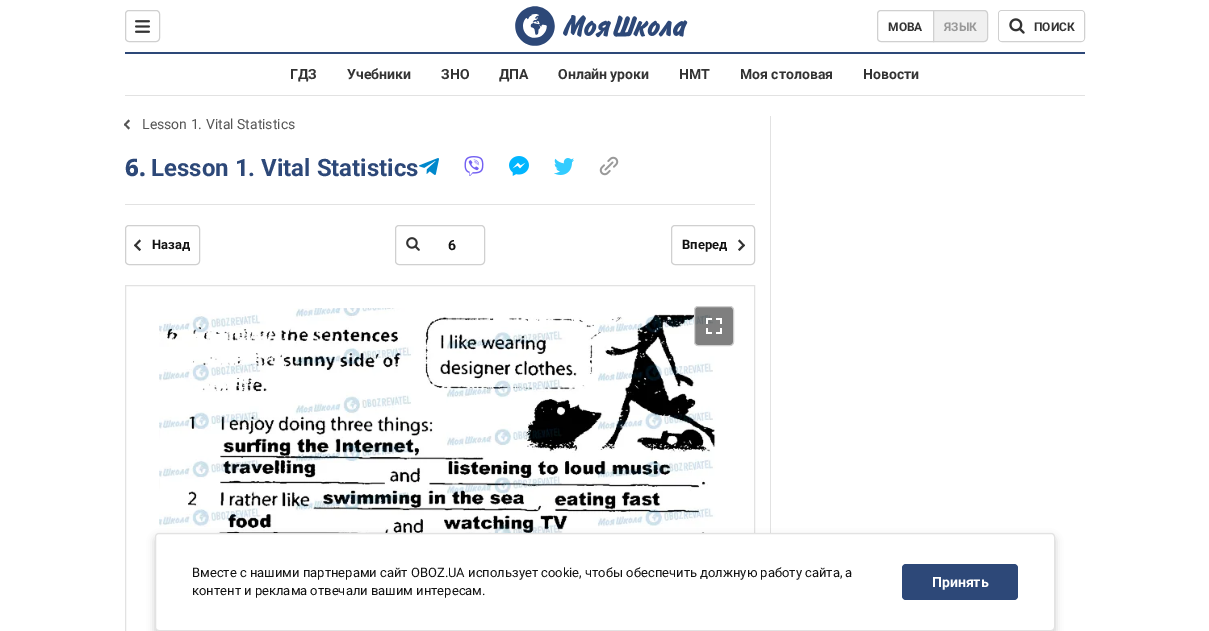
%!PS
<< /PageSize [1209 631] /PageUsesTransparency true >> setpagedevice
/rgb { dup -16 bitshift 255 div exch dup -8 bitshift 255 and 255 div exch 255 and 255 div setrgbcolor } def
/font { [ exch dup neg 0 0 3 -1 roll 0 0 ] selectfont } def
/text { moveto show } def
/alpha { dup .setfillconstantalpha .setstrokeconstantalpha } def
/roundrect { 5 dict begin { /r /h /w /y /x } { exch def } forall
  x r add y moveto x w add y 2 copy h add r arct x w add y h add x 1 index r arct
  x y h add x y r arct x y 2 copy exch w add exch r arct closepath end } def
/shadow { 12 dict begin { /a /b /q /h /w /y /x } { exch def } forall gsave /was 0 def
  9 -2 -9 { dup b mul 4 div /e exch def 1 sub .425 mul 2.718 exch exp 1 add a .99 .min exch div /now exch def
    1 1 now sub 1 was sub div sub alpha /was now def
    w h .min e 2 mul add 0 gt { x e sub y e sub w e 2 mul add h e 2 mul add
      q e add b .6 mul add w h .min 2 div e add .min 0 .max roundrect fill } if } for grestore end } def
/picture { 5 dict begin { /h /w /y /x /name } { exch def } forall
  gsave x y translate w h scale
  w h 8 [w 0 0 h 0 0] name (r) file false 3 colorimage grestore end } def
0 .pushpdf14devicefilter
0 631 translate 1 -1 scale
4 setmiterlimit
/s1 { /Roboto-Bold 12 font 16#333333 rgb } def
/s2 { /Roboto-Bold 12 font 16#999999 rgb } def
/s3 { /Roboto-Bold 14 font 16#333333 rgb } def
/s4 { /Roboto-Regular 14 font 16#555555 rgb } def
/s5 { /NotoSans-ExtraBold 24 font 16#2D4878 rgb } def
/s6 { /Roboto-Bold 24 font 16#2D4878 rgb } def
/s7 { /Roboto-Bold 13 font 16#121212 rgb } def
/s8 { /Roboto-Bold 14 font 16#121212 rgb } def
/s9 { /Roboto-Regular 13 font 16#121212 rgb } def
/s10 { /Roboto-Bold 14 font 16#FFFFFF rgb } def
16#FFFFFF rgb
0 0 1209 631 rectfill
16#2D4878 rgb
125 52 960 2 rectfill
16#D0D0D0 rgb
125.5 10.5 34 31 3.5 roundrect stroke
(pic1.raw) 135 20 15 13 picture
(pic2.raw) 515 6 173 40 picture
881 10.5 moveto 933.5 10.5 lineto 933.5 41.5 lineto 881 41.5 lineto 879 41.5 877.5 40 877.5 38 curveto 877.5 14 lineto 877.5 12 879 10.5 881 10.5 curveto closepath stroke
s1
(МОВА) 888 31 text
16#F0F0F0 rgb
933.5 10.5 moveto 984 10.5 lineto 986 10.5 987.5 12 987.5 14 curveto 987.5 38 lineto 987.5 40 986 41.5 984 41.5 curveto 933.5 41.5 lineto closepath gsave fill grestore
16#D0D0D0 rgb
stroke
s2
(ЯЗЫК) 944 31 text
16#D0D0D0 rgb
998.5 10.5 86 31 3.5 roundrect stroke
16#FFFFFF rgb
999 11 85 30 3 roundrect fill
(pic3.raw) 1009 18 16 16 picture
s1
(ПОИСК) 1034 31 text
16#E2E2E2 rgb
125 95 960 1 rectfill
s3
(ГДЗ) 290 79 text
(Учебники) 347 79 text
(ЗНО) 441 79 text
(ДПА) 499 79 text
(Онлайн уроки) 558 79 text
(НМТ) 679 79 text
(Моя столовая) 740 79 text
(Новости) 863 79 text
16#555555 rgb
130 128 moveto 128.5 129.5 lineto 124 124.5 lineto 125 123.5 lineto closepath fill
130 121 moveto 125 126 lineto 124 124.5 lineto 128.5 119.5 lineto closepath fill
s4
(Lesson 1. Vital Statistics) 142 129 text
16#E2E2E2 rgb
125 204 630 1 rectfill
s5
(6.) 125 176 text
s6
(Lesson 1. Vital Statistics) 151 176 text
(pic4.raw) 419 158 20 17 picture
(pic5.raw) 464 156 20 20 picture
(pic6.raw) 509 156 20 20 picture
(pic7.raw) 554 158 20 17 picture
(pic8.raw) 599 156 20 20 picture
16#D0D0D0 rgb
125.5 225.5 74 39 3.5 roundrect stroke
16#333333 rgb
141 249.5 moveto 139.5 251 lineto 134 245.5 lineto 135.5 244 lineto closepath fill
141 241 moveto 135.5 246.5 lineto 134 245.5 lineto 139.5 239.5 lineto closepath fill
s7
(Назад) 152 249 text
16#D0D0D0 rgb
395.5 225.5 89 39 3.5 roundrect stroke
(pic9.raw) 406 237 14 14 picture
s8
(6) 448 250 text
16#D0D0D0 rgb
671.5 225.5 83 39 3.5 roundrect stroke
s7
(Вперед) 682 249 text
16#333333 rgb
738 241 moveto 739.5 239.5 lineto 745 245.5 lineto 743.5 246.5 lineto closepath fill
738 249.5 moveto 743.5 244 lineto 745 245.5 lineto 739.5 251 lineto closepath fill
16#E2E2E2 rgb
125.5 285.5 629 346 rectstroke
(pic11.raw) 159 308 557 225 picture
0.5 alpha
16#000000 rgb
694.5 306.5 39 39 3.5 roundrect fill
1 alpha
16#D0D0D0 rgb
694.5 306.5 39 39 3.5 roundrect stroke
(pic10.raw) 706 318 16 16 picture
16#E2E2E2 rgb
770 116 1 417 rectfill
16#000000 rgb
155 537 900 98 4 4 0.2 shadow
16#FFFFFF rgb
155.5 533.5 899 97 3.5 roundrect gsave fill grestore
16#E2E2E2 rgb
stroke
s9
(Вместе с нашими партнерами сайт OBOZ.UA использует cookie, чтобы обеспечить должную работу сайта, а) 192 577 text
(контент и реклама отвечали вашим интересам.) 192 595 text
16#2D4878 rgb
902 564 116 36 4 roundrect fill
s10
(Принять) 932 587 text
.poppdf14devicefilter showpage
